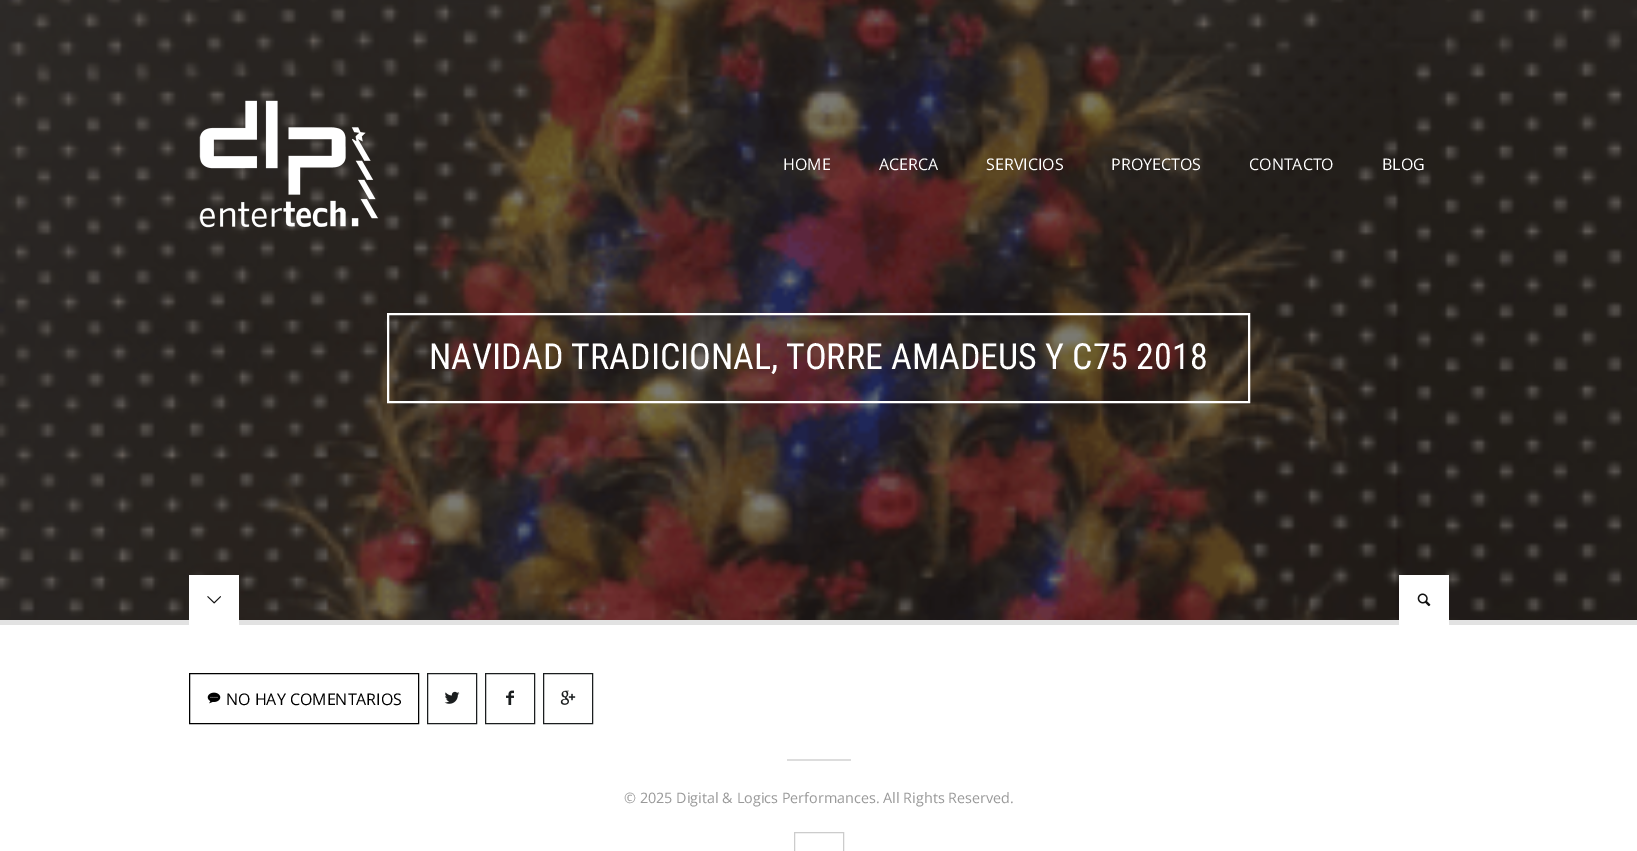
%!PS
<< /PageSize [1637 851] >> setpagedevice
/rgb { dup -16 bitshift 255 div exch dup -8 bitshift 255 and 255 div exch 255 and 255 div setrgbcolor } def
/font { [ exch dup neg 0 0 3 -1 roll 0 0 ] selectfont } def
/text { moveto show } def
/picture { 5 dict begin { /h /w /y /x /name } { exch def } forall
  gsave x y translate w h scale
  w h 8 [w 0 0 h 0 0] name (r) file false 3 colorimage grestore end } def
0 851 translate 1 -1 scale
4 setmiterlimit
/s1 { /OpenSans-Regular 16 font 16#FFFFFF rgb } def
/s2 { /RobotoCondensed-Regular 36 font 16#FFFFFF rgb } def
/s3 { /OpenSans-Regular 16 font 16#000000 rgb } def
/s4 { /OpenSans-Regular 14.4 font 16#999999 rgb } def
16#FFFFFF rgb
0 0 1637 851 rectfill
(pic2.raw) 0 0 1637 620 picture
(pic1.raw) 199 100 180 128 picture
s1
(HOME) 783 170 text
(ACERCA) 879 170 text
(SERVICIOS) 986 170 text
(PROYECTOS) 1111 170 text
(CONTACTO) 1249 170 text
(BLOG) 1382 170 text
2 setlinewidth
388 314 861 88 rectstroke
s2
(NAVIDAD TRADICIONAL, TORRE AMADEUS Y C75 2018) 429 369 text
16#E2E2E2 rgb
0 620 1637 5 rectfill
16#FFFFFF rgb
189 575 50 50 rectfill
(pic3.raw) 207 596 14 8 picture
1399 575 50 50 rectfill
(pic4.raw) 1417 593 14 14 picture
16#000000 rgb
1 setlinewidth
189.5 673.5 229 50 rectstroke
(pic5.raw) 207 692 14 12 picture
s3
(NO HAY COMENTARIOS) 226 705 text
16#1B1E1F rgb
427.5 673.5 49 50 rectstroke
(pic6.raw) 444 691 16 13 picture
485.5 673.5 49 50 rectstroke
(pic7.raw) 506 690 8 15 picture
543.5 673.5 49 50 rectstroke
(pic8.raw) 560 690 16 15 picture
16#DDDDDD rgb
787 759 64 2 rectfill
s4
(© 2025 Digital & Logics Performances. All Rights Reserved.) 624 803 text
16#CCCCCC rgb
794.5 832.5 49 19 rectstroke
showpage
